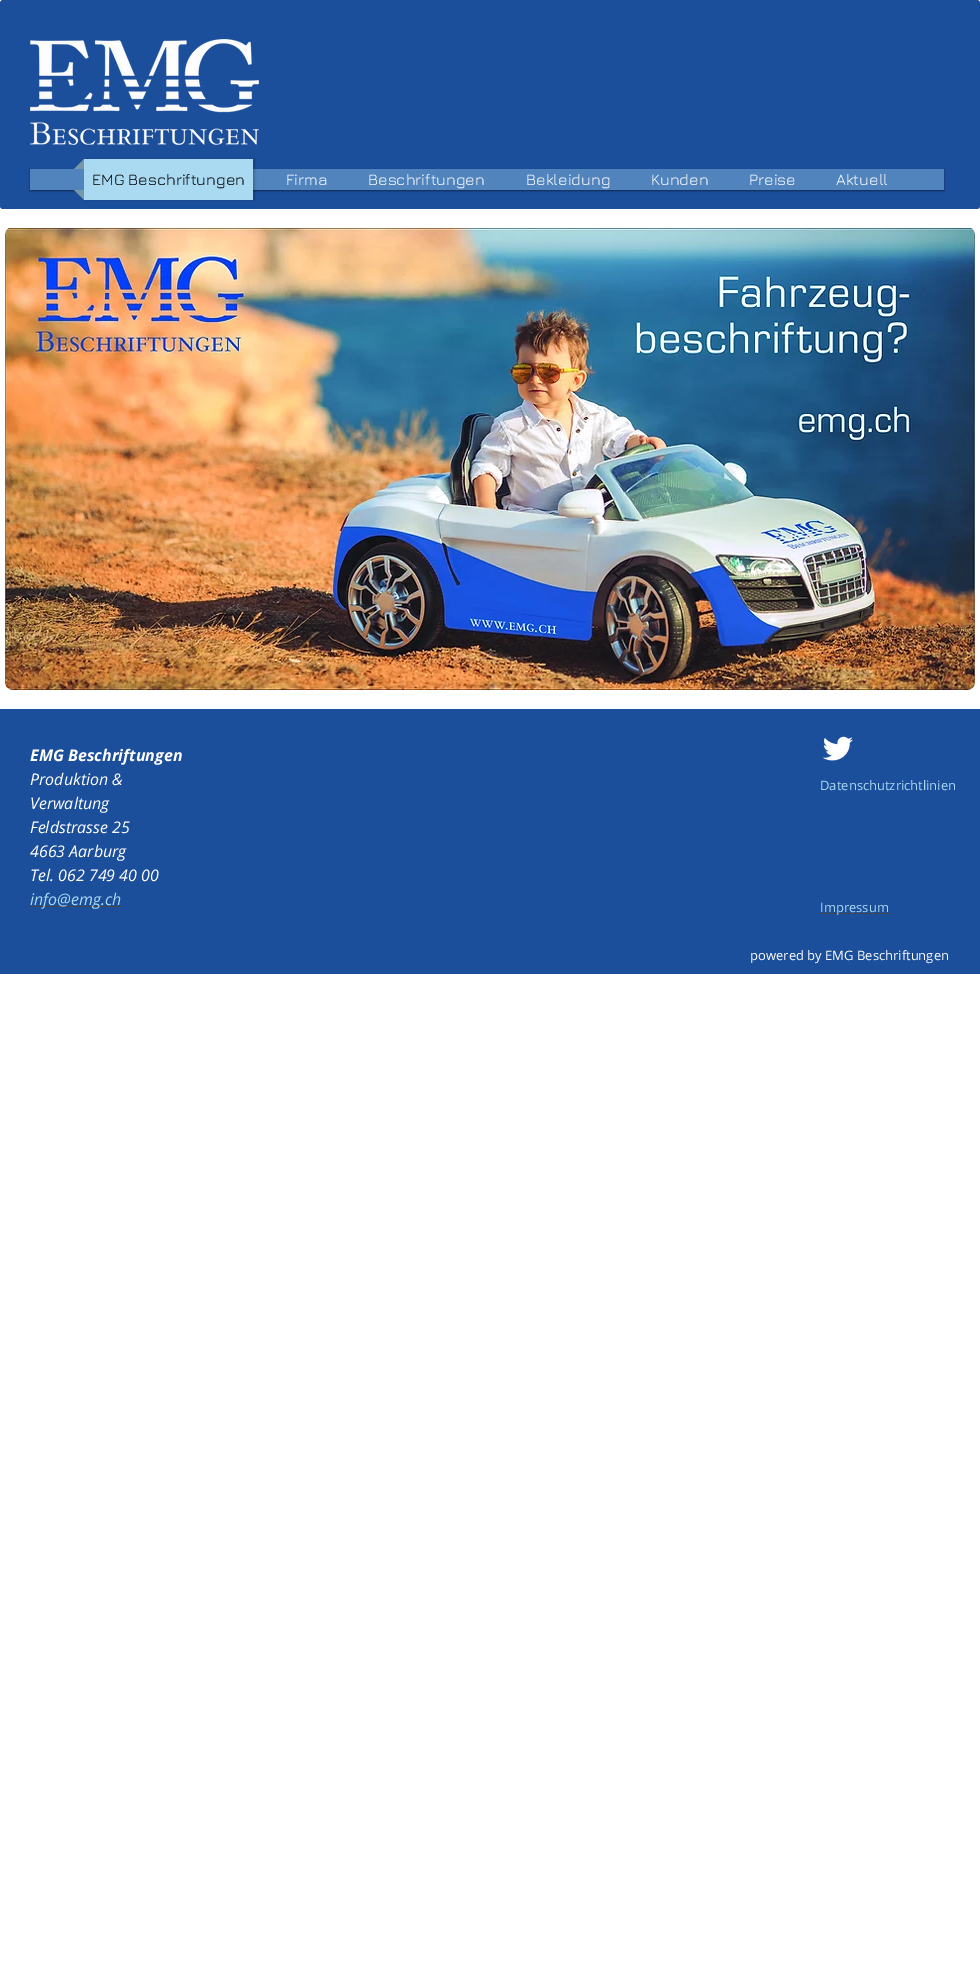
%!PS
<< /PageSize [980 1988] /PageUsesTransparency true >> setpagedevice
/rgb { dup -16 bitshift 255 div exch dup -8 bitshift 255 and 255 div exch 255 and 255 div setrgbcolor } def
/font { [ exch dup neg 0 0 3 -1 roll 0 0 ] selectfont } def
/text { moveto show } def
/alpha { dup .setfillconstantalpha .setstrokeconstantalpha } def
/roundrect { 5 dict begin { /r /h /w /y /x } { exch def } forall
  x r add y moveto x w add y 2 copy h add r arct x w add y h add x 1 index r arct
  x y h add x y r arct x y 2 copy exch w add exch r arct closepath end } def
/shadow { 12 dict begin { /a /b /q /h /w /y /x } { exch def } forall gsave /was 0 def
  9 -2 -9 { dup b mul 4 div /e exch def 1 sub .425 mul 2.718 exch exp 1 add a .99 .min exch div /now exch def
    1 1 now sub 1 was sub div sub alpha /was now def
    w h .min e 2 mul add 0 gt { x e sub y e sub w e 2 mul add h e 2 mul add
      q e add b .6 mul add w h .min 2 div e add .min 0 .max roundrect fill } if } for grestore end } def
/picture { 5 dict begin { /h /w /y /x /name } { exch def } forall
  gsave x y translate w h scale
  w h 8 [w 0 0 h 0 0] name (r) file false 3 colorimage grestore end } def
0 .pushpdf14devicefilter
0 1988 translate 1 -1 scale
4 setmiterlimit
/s1 { /Jura-Regular 16 font 16#000000 rgb } def
/s2 { /Jura-Regular 16 font 16#FFFFFF rgb } def
/s3 { /OpenSans-BoldItalic 16 font 16#FFFFFF rgb } def
/s4 { /OpenSans-Italic 16 font 16#FFFFFF rgb } def
/s5 { /OpenSans-Italic 16 font 16#AAD9F2 rgb } def
/s6 { /OpenSans-Regular 13 font 16#AAD9F2 rgb } def
/s7 { /OpenSans-Regular 13 font 16#FFFFFF rgb } def
16#FFFFFF rgb
0 0 980 1988 rectfill
16#1B4E9B rgb
0 0 980 209 3 roundrect fill
(pic1.raw) 30 39 229 106 picture
16#000000 rgb
30 170 914 21 0 1 0.5 shadow
16#5183BC rgb
30 169 914 21 rectfill
16#000000 rgb
86 159 169 41 0 1 0.2 shadow
16#7798A9 rgb
84 169 moveto 74 169 lineto 84 159 lineto closepath 74 190 moveto 84 190 lineto 84 200 lineto closepath fill
16#AAD9F2 rgb
84 159 169 41 rectfill
s1
(EMG Beschriftungen) 92 185 text
s2
(Firma) 286 185 text
(Beschriftungen) 368 185 text
(Bekleidung) 526 185 text
(Kunden) 651 185 text
(Preise) 749 185 text
(Aktuell) 836 185 text
(pic2.raw) 5 228 970 462 picture
16#1B4E9B rgb
0 709 980 265 rectfill
s3
(EMG Beschriftungen) 30 761 text
s4
(Produktion &) 30 785 text
(Verwaltung) 30 809 text
(Feldstrasse 25) 30 833 text
(4663 Aarburg) 30 857 text
(Tel. 062 749 40 00) 30 881 text
16#474646 rgb
30 906 91 1 rectfill
s5
(info@emg.ch) 30 905 text
(pic3.raw) 823 736 30 25 picture
s6
(Datenschutzrichtlinien) 820 790 text
16#474646 rgb
820 913 69 1 rectfill
s6
(Impressum) 820 912 text
s7
(powered by EMG Beschriftungen) 750 960 text
.poppdf14devicefilter showpage
